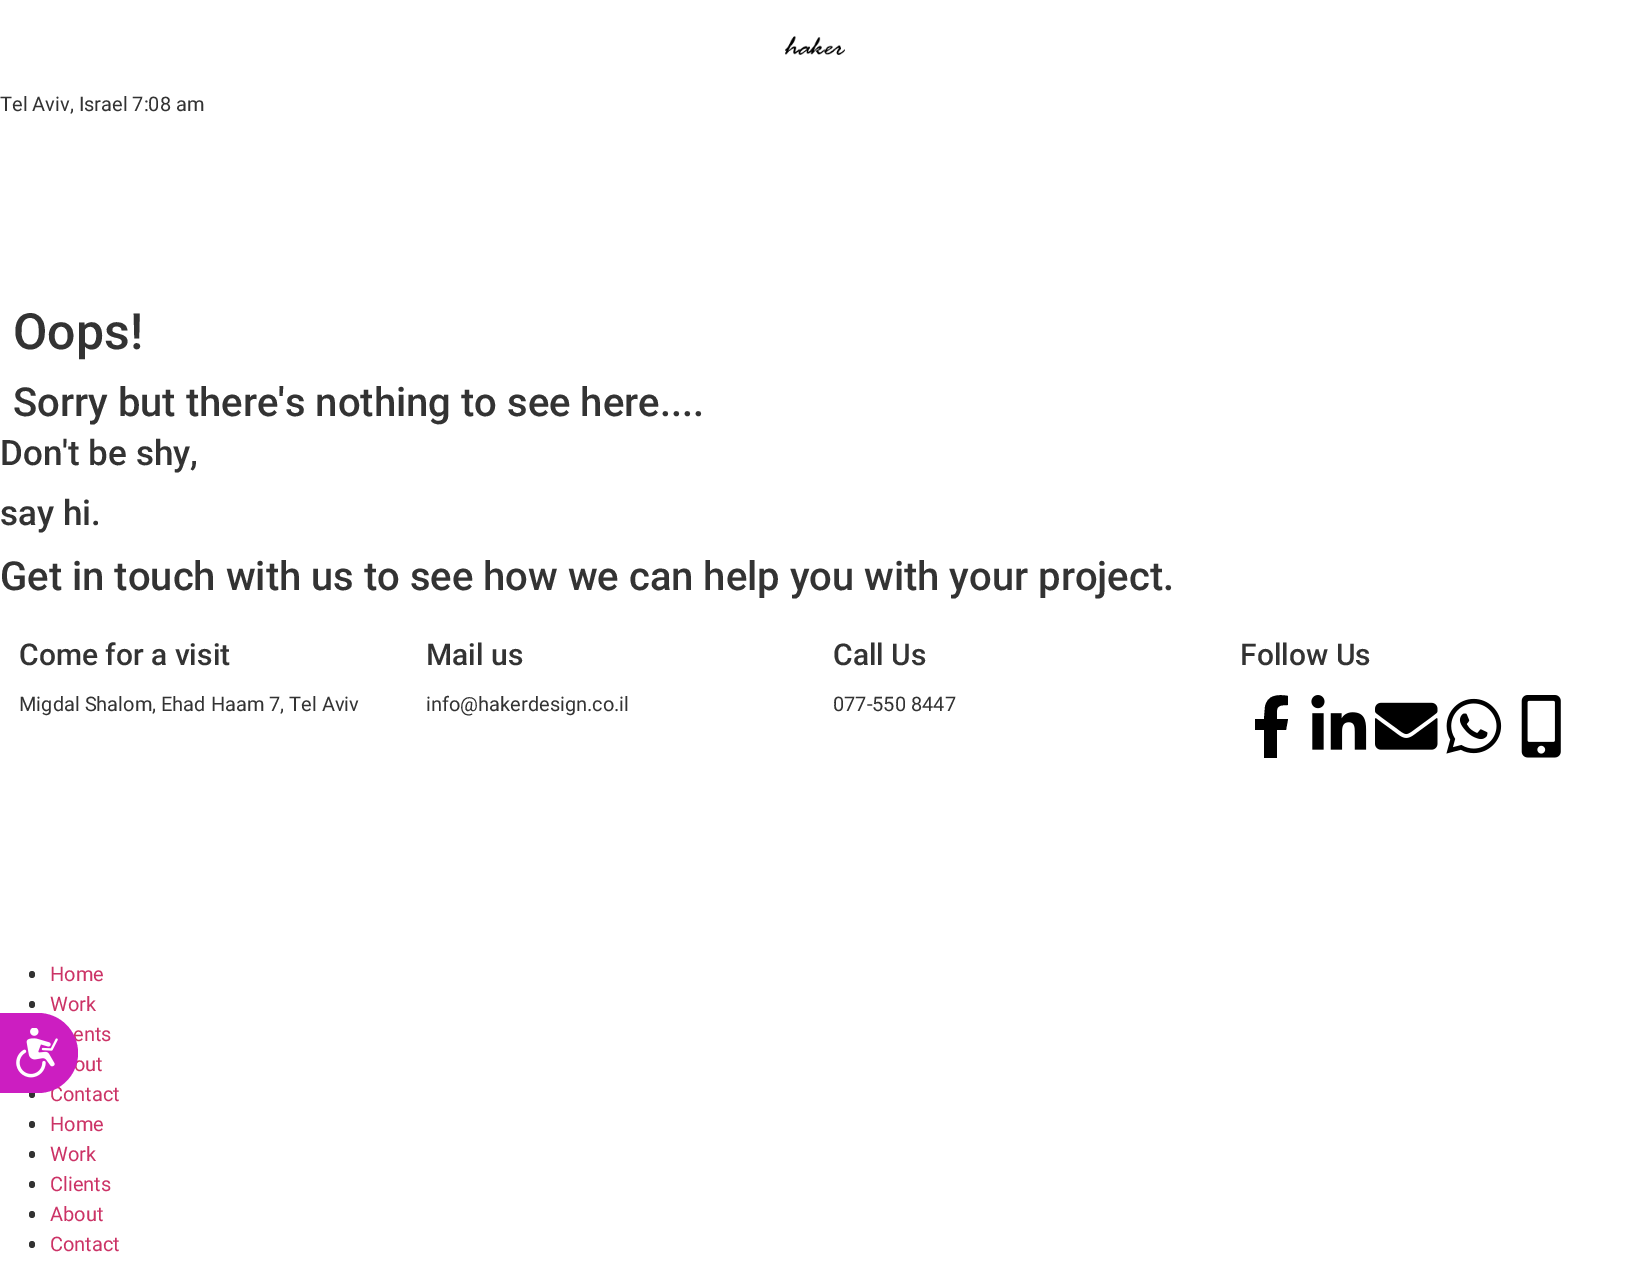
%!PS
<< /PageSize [1628 1264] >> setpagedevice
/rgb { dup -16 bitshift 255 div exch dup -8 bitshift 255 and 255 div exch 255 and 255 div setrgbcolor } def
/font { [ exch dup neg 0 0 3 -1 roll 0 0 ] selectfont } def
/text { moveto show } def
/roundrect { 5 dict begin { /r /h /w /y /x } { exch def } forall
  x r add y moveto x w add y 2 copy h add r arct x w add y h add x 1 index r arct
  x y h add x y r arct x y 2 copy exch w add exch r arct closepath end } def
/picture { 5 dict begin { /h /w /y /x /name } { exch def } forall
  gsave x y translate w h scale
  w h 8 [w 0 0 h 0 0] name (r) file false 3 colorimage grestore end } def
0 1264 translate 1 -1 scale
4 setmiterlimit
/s1 { /Roboto-Regular 20 font 16#333333 rgb } def
/s2 { /Roboto-Medium 50 font 16#333333 rgb } def
/s3 { /Roboto-Medium 40 font 16#333333 rgb } def
/s4 { /Roboto-Medium 35 font 16#333333 rgb } def
/s5 { /Roboto-Medium 30 font 16#333333 rgb } def
/s6 { /Roboto-Regular 20 font 16#CC3366 rgb } def
16#FFFFFF rgb
0 0 1628 1264 rectfill
(pic1.raw) 785 36 60 19 picture
s1
(Tel Aviv, Israel 7:08 am) 0 111 text
s2
(Oops!) 13 349 text
s3
(Sorry but there's nothing to see here....) 13 416 text
s4
(Don't be shy,) 0 465 text
(say hi.) 0 525 text
s3
(Get in touch with us to see how we can help you with your project.) 0 590 text
s5
(Come for a visit) 19 665 text
s1
(Migdal Shalom, Ehad Haam 7, Tel Aviv) 19 711 text
s5
(Mail us) 426 665 text
s1
(info@hakerdesign.co.il) 426 711 text
s5
(Call Us) 833 665 text
s1
(077-550 8447) 833 711 text
s5
(Follow Us) 1240 665 text
16#000000 rgb
1286 730 moveto 1288 719 lineto 1277 719 lineto 1277 708 1275 705 1288 705 curveto 1288 696 lineto 1278 694 1267 695 1265 707 curveto 1264 719 lineto 1255 719 lineto 1255 730 lineto 1264 730 lineto 1264 758 lineto 1277 758 lineto 1277 730 lineto closepath fill
(pic2.raw) 1311 695 56 55 picture
(pic3.raw) 1375 702 63 48 picture
(pic4.raw) 1446 698 56 56 picture
(pic5.raw) 1521 695 40 63 picture
s6
(ents) 73 1041 text
(out) 74 1071 text
16#333333 rgb
29 1091 6 7 3 roundrect fill
s6
(Contact) 50 1101 text
16#CC1EC1 rgb
0 1013 moveto 38 1013 lineto 60 1013 78 1031 78 1053 curveto 78 1075 60 1093 38 1093 curveto 0 1093 lineto closepath fill
(pic6.raw) 16 1028 42 50 picture
16#333333 rgb
29 971 6 7 3 roundrect fill
s6
(Home) 50 981 text
16#333333 rgb
29 1001 6 7 3 roundrect fill
s6
(Work) 50 1011 text
16#333333 rgb
29 1121 6 7 3 roundrect fill
s6
(Home) 50 1131 text
16#333333 rgb
29 1151 6 7 3 roundrect fill
s6
(Work) 50 1161 text
16#333333 rgb
29 1181 6 7 3 roundrect fill
s6
(Clients) 50 1191 text
16#333333 rgb
29 1211 6 7 3 roundrect fill
s6
(About) 50 1221 text
16#333333 rgb
29 1241 6 7 3 roundrect fill
s6
(Contact) 50 1251 text
showpage
